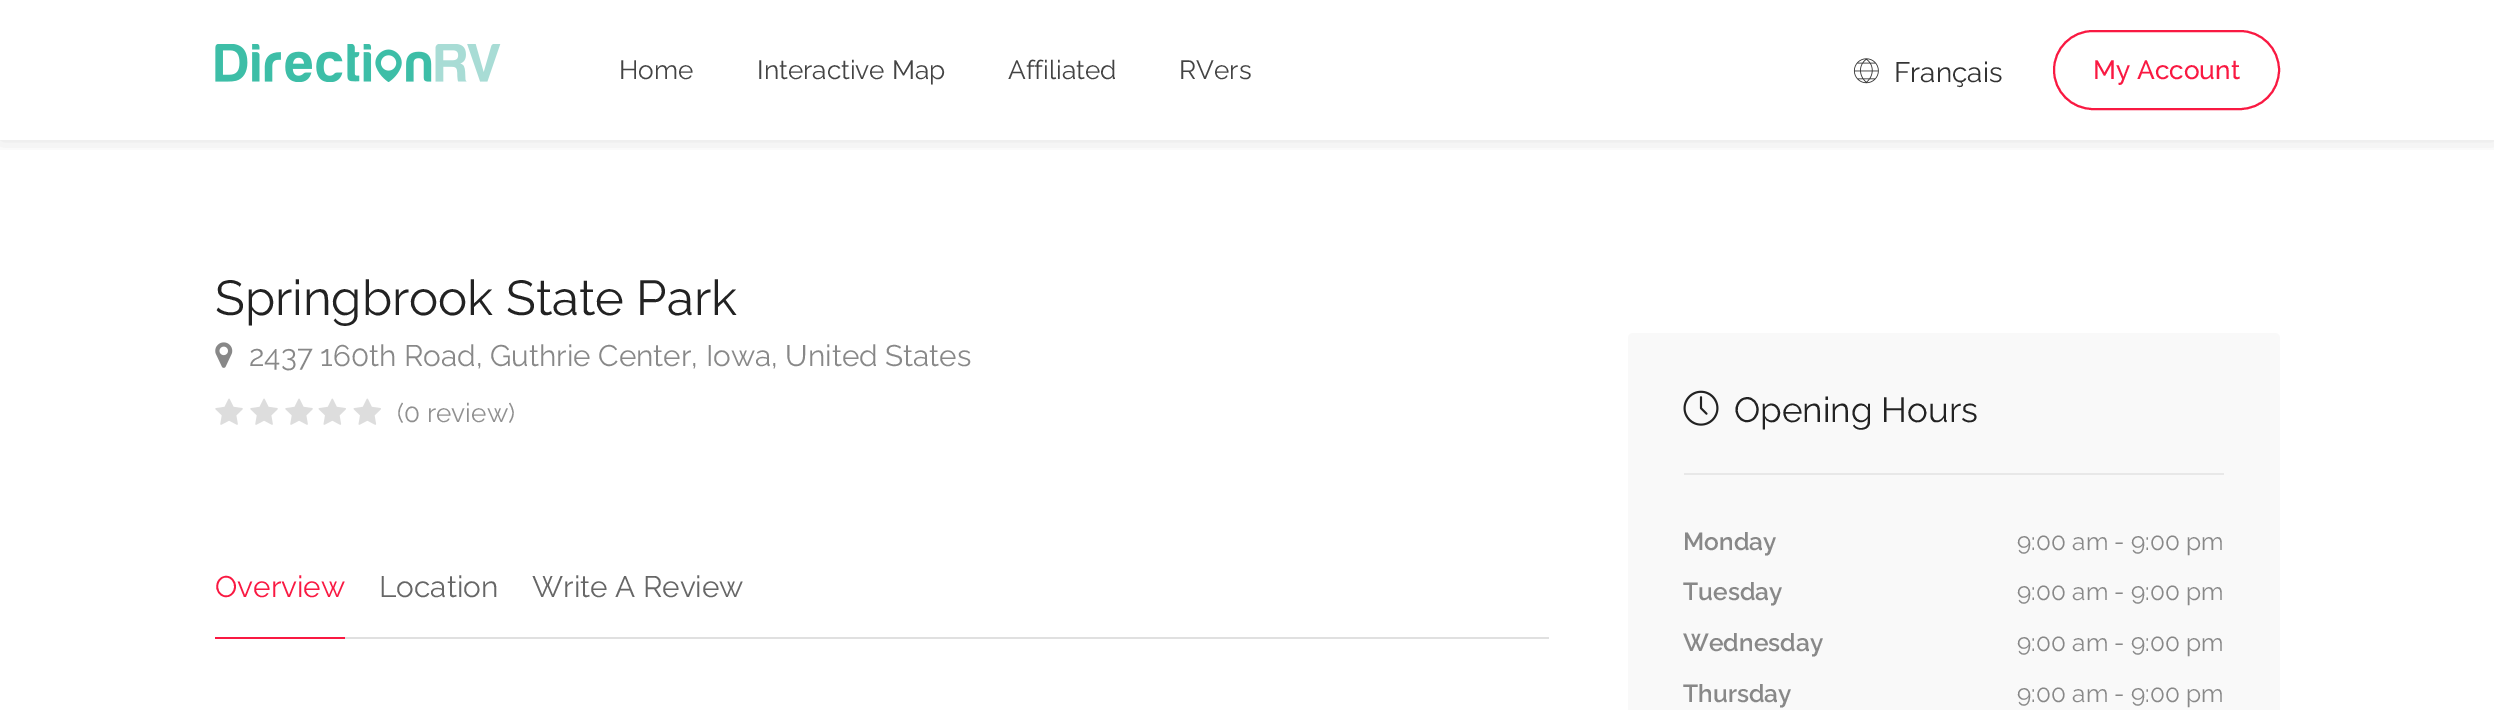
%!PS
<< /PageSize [2494 710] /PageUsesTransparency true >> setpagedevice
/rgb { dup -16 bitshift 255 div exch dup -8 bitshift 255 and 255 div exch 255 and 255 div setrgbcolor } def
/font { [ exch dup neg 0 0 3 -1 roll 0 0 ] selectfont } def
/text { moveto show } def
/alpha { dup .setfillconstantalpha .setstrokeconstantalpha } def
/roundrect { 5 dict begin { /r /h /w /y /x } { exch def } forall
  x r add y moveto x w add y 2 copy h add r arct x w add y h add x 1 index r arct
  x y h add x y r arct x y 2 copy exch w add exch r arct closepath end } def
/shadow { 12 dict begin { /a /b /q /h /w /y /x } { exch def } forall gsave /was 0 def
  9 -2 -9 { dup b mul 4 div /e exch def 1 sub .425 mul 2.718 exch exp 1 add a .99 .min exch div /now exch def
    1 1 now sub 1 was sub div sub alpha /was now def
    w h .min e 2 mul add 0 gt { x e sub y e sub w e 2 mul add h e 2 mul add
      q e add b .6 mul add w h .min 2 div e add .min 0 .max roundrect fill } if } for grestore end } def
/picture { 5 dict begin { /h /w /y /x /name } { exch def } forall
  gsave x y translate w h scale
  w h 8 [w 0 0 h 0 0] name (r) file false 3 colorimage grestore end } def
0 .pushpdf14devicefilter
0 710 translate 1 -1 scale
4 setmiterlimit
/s1 { /Raleway-Regular 26.25 font 16#444444 rgb } def
/s2 { /Raleway-Regular 28 font 16#333333 rgb } def
/s3 { /Raleway-Medium 26.25 font 16#F91942 rgb } def
/s4 { /Raleway-Regular 49 font 16#222222 rgb } def
/s5 { /Raleway-Regular 29.75 font 16#888888 rgb } def
/s6 { /Raleway-Regular 26.25 font 16#909090 rgb } def
/s7 { /Raleway-Regular 29.75 font 16#F91942 rgb } def
/s8 { /Raleway-Regular 29.75 font 16#666666 rgb } def
/s9 { /Raleway-Regular 35 font 16#222222 rgb } def
/s10 { /Raleway-SemiBold 24.5 font 16#888888 rgb } def
/s11 { /Raleway-Regular 24.5 font 16#888888 rgb } def
16#FFFFFF rgb
0 0 2494 710 rectfill
gsave
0 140 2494 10 rectclip
16#000000 rgb
0 0 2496 140 0 10.5 0.12 shadow
grestore
(pic1.raw) 215 44 286 38 picture
s1
(Home) 619 79 text
(Interactive Map) 757 79 text
(Affiliated) 1008 79 text
(RVers) 1179 79 text
(pic2.raw) 1853 58 26 26 picture
s2
(Français) 1894 82 text
16#F91942 rgb
2 setlinewidth
2054 31 225 78 39 roundrect stroke
s3
(My Account) 2093 79 text
s4
(Springbrook State Park) 215 315 text
(pic3.raw) 215 342 18 26 picture
s5
(2437 160th Road, Guthrie Center, Iowa, United States) 249 366 text
(pic4.raw) 215 398 28 27 picture
(pic4.raw) 250 398 28 27 picture
(pic4.raw) 285 398 28 27 picture
(pic5.raw) 318 398 28 27 picture
(pic5.raw) 353 398 28 27 picture
s6
(\(0 review\)) 397 422 text
16#E0E0E0 rgb
345 637 1204 2 rectfill
16#F91942 rgb
215 637 130 2 rectfill
s7
(Overview) 215 597 text
s8
(Location) 379 597 text
(Write A Review) 532 597 text
16#F9F9F9 rgb
1628 333 652 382 5 roundrect fill
16#E8E8E8 rgb
1684 473 540 2 rectfill
(pic6.raw) 1683 390 36 36 picture
s9
(Opening Hours) 1734 422 text
s10
(Monday) 1683 550 text
s11
(9:00 am - 9:00 pm) 2017 550 text
s10
(Tuesday) 1683 600 text
s11
(9:00 am - 9:00 pm) 2017 600 text
s10
(Wednesday) 1683 651 text
s11
(9:00 am - 9:00 pm) 2017 651 text
s10
(Thursday) 1683 702 text
s11
(9:00 am - 9:00 pm) 2017 702 text
.poppdf14devicefilter showpage
